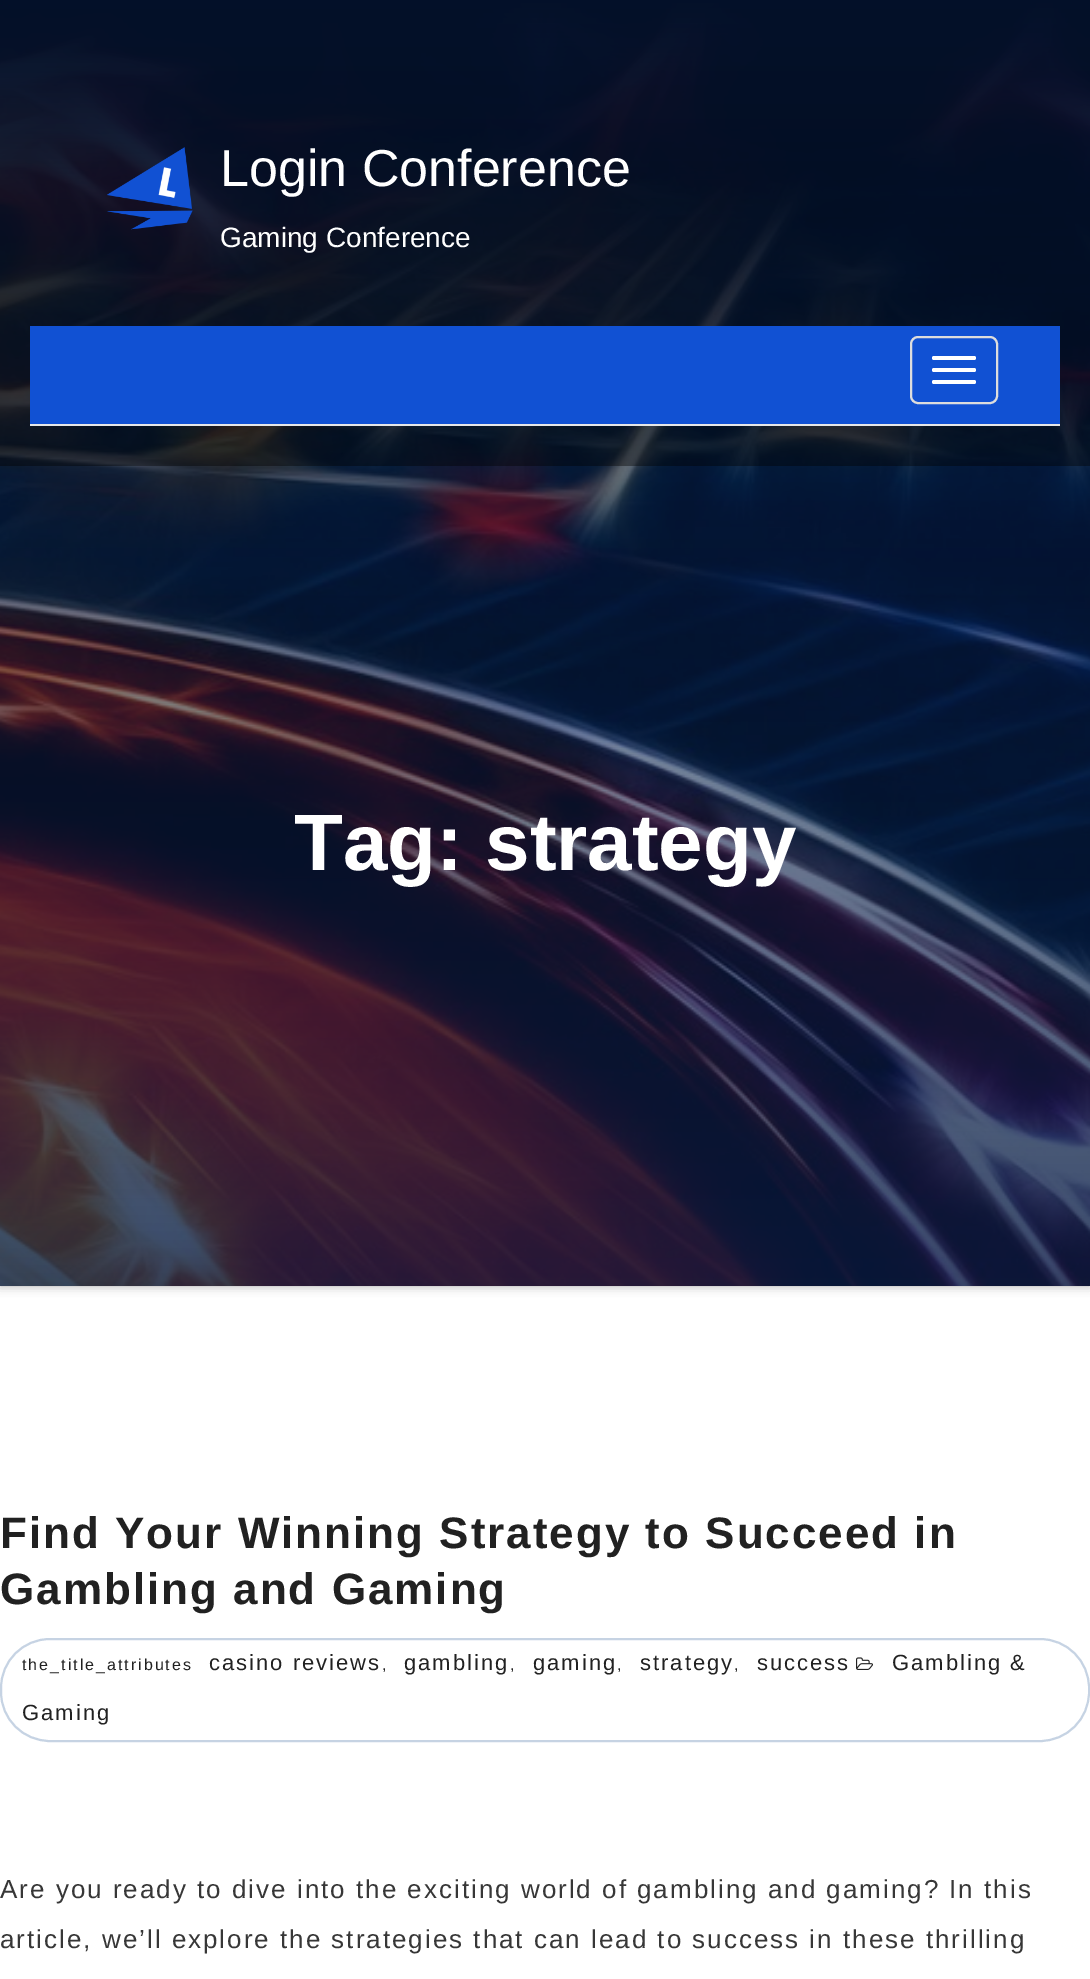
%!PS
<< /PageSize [1090 1979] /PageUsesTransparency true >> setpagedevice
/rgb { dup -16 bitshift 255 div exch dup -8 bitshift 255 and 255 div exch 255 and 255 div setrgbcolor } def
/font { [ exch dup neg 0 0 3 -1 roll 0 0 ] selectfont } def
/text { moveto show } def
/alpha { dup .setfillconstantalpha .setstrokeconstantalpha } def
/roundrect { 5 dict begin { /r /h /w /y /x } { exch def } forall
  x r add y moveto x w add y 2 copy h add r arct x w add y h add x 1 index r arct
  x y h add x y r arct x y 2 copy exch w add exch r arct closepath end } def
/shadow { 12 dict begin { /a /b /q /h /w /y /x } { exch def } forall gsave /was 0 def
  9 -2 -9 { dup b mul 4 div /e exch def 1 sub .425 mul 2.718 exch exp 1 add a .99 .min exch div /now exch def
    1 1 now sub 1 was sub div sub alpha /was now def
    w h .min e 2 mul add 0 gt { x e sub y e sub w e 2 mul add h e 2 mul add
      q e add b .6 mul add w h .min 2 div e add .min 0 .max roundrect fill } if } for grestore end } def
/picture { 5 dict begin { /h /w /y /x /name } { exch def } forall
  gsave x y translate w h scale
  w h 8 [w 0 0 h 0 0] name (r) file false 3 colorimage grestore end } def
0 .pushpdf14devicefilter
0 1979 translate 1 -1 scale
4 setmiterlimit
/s1 { /LiberationSans-Regular 52 font 16#FFFFFF rgb } def
/s2 { /LiberationSans-Regular 28 font 16#FFFFFF rgb } def
/s3 { /LiberationSans-Bold 80 font 16#FFFFFF rgb } def
16#FFFFFF rgb
0 0 1090 1979 rectfill
16#AAAAAA rgb
0 0 1090 1286 0 5 1 shadow
(pic2.raw) 0 0 1090 1286 picture
0.4 alpha
16#000000 rgb
0 0 1090 466 rectfill
1 alpha
(pic1.raw) 107 147 86 83 picture
s1
(Login Conference) 220 186 text
s2
(Gaming Conference) 220 247 text
16#1151D3 rgb
30 326 1030 98 rectfill
16#E7E7E7 rgb
30 424 1030 2 rectfill
16#DDDDDD rgb
2 setlinewidth
911 337 86 66 7 roundrect stroke
16#FFFFFF rgb
932 356 44 4 2 roundrect fill
932 368 44 4 2 roundrect fill
932 380 44 4 2 roundrect fill
s3
(Tag: strategy) 294 870 text
/LiberationSans-Bold 44 font
16#212121 rgb
0 1548 moveto 2 0 (Find Your Winning Strategy to Succeed in) ashow
0 1604 moveto 2 0 (Gambling and Gaming) ashow
16#C6D3E3 rgb
1 1639 1088 102 49 roundrect stroke
/LiberationSans-Regular 16 font
16#212121 rgb
22 1670 moveto 2 0 (the_title_attributes) ashow
/LiberationSans-Regular 22 font
209 1670 moveto 2 0 (casino reviews) ashow
/LiberationSans-Regular 16 font
382 1670 moveto 2 0 (,) ashow
/LiberationSans-Regular 22 font
404 1670 moveto 2 0 (gambling) ashow
/LiberationSans-Regular 16 font
510 1670 moveto 2 0 (,) ashow
/LiberationSans-Regular 22 font
533 1670 moveto 2 0 (gaming) ashow
/LiberationSans-Regular 16 font
617 1670 moveto 2 0 (,) ashow
/LiberationSans-Regular 22 font
640 1670 moveto 2 0 (strategy) ashow
/LiberationSans-Regular 16 font
734 1670 moveto 2 0 (,) ashow
/LiberationSans-Regular 22 font
757 1670 moveto 2 0 (success) ashow
(pic3.raw) 856 1657 17 13 picture
892 1670 moveto 2 0 (Gambling &) ashow
22 1720 moveto 2 0 (Gaming) ashow
/LiberationSans-Regular 26 font
16#373737 rgb
0 1898 moveto 2 0 (Are you ready to dive into the exciting world of gambling and gaming? In this) ashow
0 1948 moveto 2 0 (article, we’ll explore the strategies that can lead to success in these thrilling) ashow
.poppdf14devicefilter showpage
